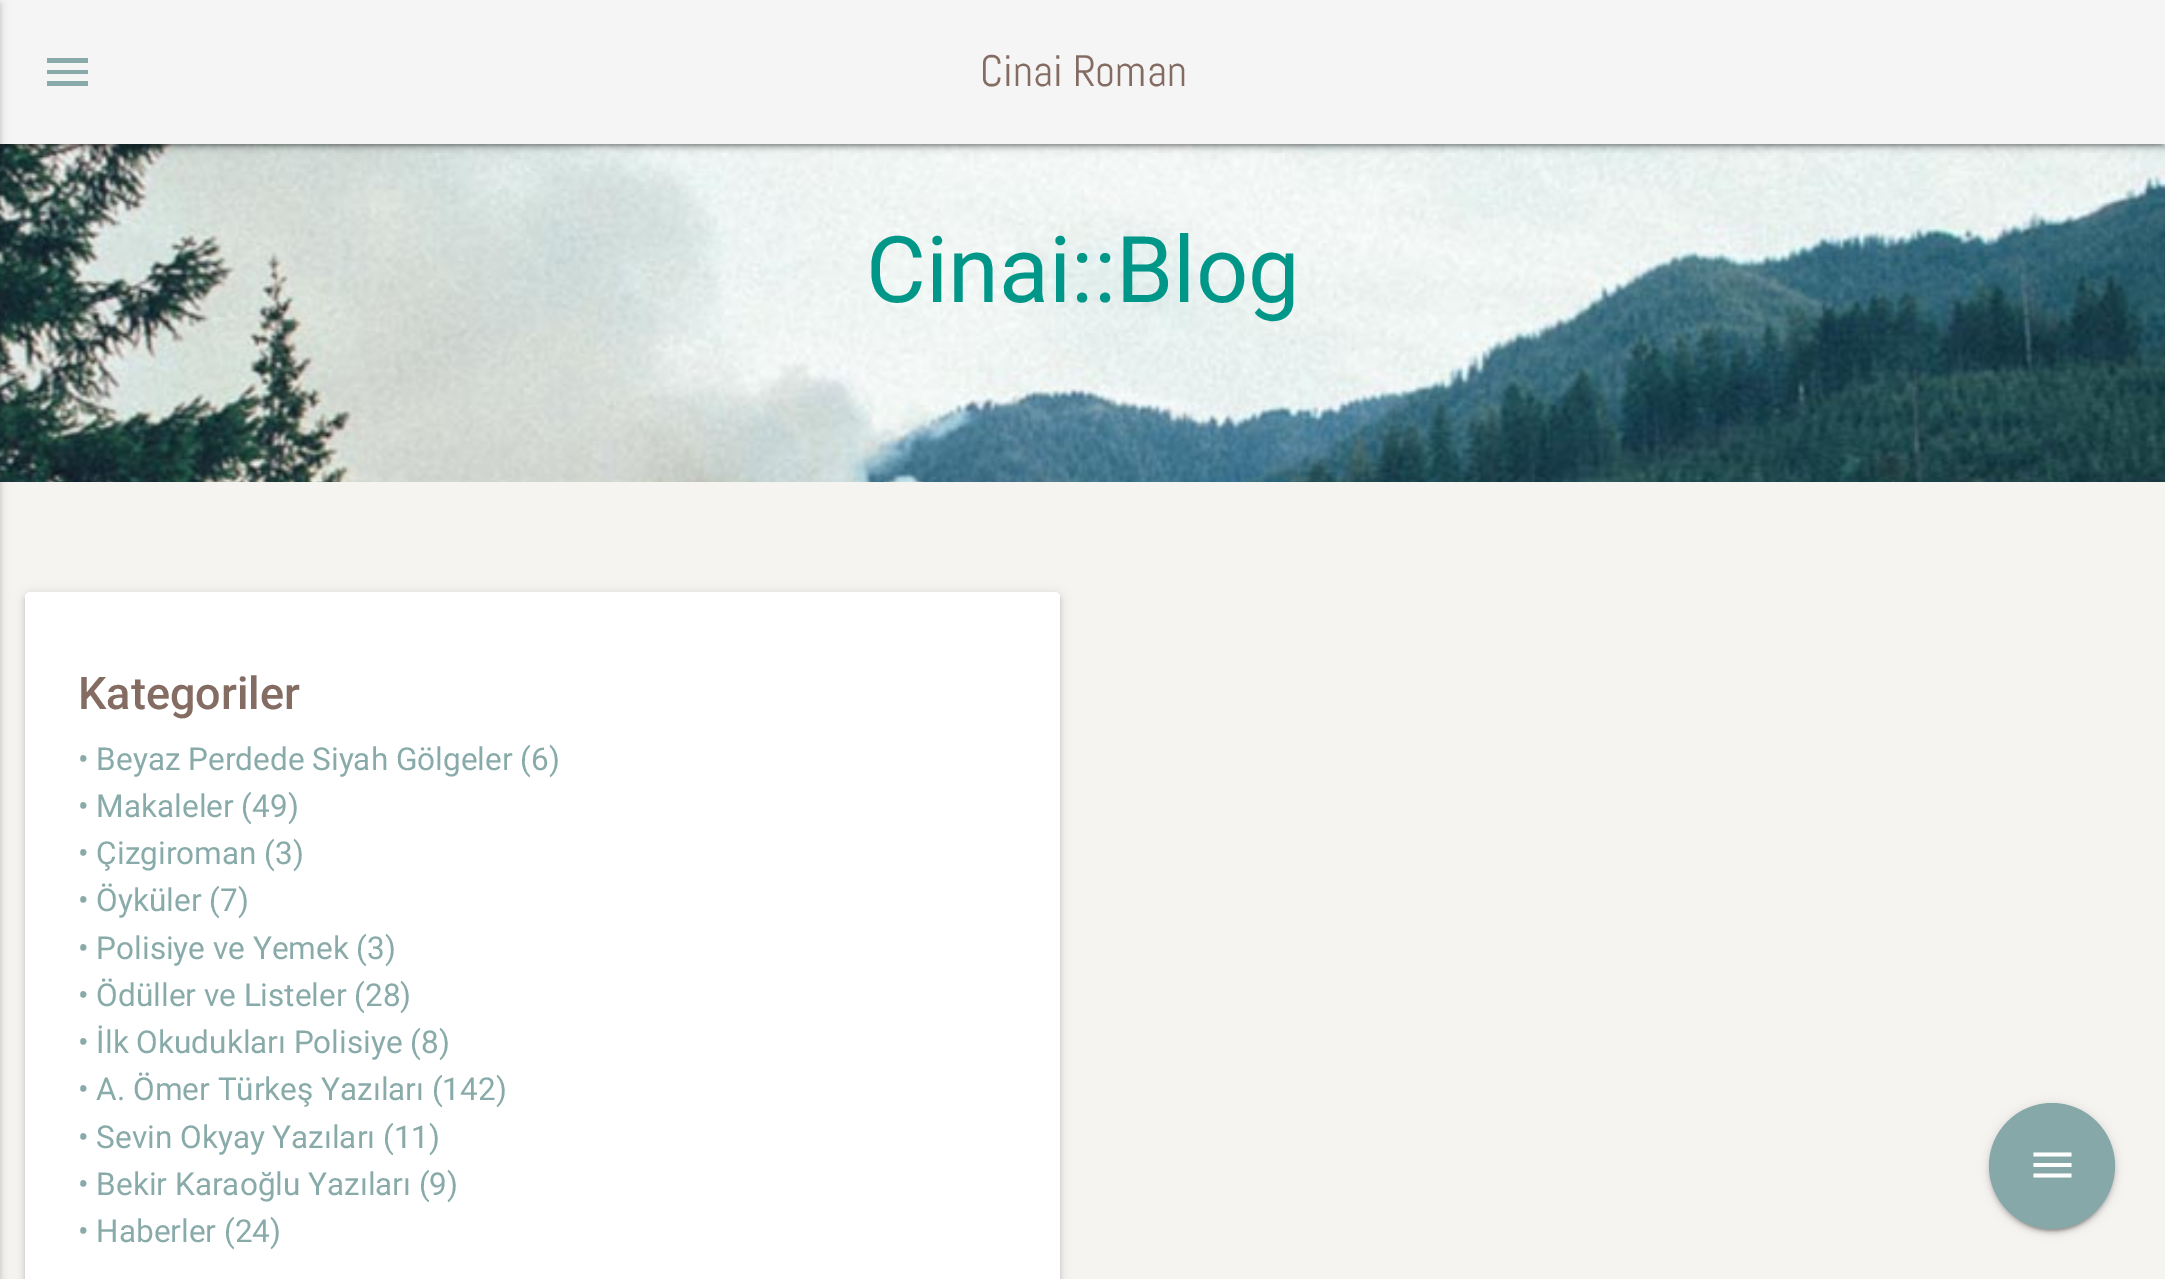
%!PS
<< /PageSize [2165 1279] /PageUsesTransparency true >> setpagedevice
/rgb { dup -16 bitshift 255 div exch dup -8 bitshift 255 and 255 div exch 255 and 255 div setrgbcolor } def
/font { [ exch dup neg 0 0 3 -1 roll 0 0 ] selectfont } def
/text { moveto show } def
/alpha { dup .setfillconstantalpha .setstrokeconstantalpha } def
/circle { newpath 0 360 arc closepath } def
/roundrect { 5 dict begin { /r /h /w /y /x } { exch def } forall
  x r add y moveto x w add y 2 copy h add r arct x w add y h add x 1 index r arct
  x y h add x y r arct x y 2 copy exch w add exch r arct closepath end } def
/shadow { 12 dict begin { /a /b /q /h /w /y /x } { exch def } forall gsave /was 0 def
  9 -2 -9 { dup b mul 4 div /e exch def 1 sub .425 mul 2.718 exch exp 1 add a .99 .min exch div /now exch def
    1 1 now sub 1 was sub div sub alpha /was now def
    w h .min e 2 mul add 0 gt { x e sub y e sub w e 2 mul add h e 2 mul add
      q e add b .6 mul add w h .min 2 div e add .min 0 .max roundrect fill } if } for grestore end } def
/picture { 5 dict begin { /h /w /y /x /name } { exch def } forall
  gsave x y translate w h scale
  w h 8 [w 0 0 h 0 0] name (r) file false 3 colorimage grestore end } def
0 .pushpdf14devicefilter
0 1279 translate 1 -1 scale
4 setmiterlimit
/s1 { /Abel-Regular 44 font 16#846C63 rgb } def
/s2 { /Roboto-Regular 92 font 16#009688 rgb } def
/s3 { /Roboto-Medium 45 font 16#846C63 rgb } def
/s4 { /Roboto-Regular 31.5 font 16#88AAA9 rgb } def
16#F6F4F1 rgb
0 0 2165 1279 rectfill
(pic1.raw) 0 144 2165 338 picture
16#000000 rgb
5 11 2157 135 0 1 0.2 shadow
0 2 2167 144 0 5.5 0.12 shadow
0 5 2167 144 0 2 0.14 shadow
16#F5F5F5 rgb
0 0 2165 144 rectfill
16#000000 rgb
-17 2 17 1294 0 5.5 0.12 shadow
-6 5 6 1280 0 2 0.14 shadow
16#88AAA9 rgb
47 58 moveto 88 58 lineto 88 63 lineto 47 63 lineto closepath 47 74 moveto 47 70 lineto 88 70 lineto 88 74 lineto closepath 47 86 moveto 47 81 lineto 88 81 lineto 88 86 lineto closepath fill
s1
(Cinai Roman) 980 86 text
s2
(Cinai::Blog) 866 302 text
16#000000 rgb
25 594 1035 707 5 5.5 0.12 shadow
25 596 1035 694 5 2 0.14 shadow
16#FFFFFF rgb
25 592 1035 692 5 roundrect fill
s3
(Kategoriler) 78 709 text
s4
(• Beyaz Perdede Siyah Gölgeler \(6\)) 78 770 text
(• Makaleler \(49\)) 78 817 text
(• Çizgiroman \(3\)) 78 864 text
(• Öyküler \(7\)) 78 911 text
(• Polisiye ve Yemek \(3\)) 78 959 text
(• Ödüller ve Listeler \(28\)) 78 1006 text
(• İlk Okudukları Polisiye \(8\)) 78 1053 text
(• A. Ömer Türkeş Yazıları \(142\)) 78 1100 text
(• Sevin Okyay Yazıları \(11\)) 78 1148 text
(• Bekir Karaoğlu Yazıları \(9\)) 78 1195 text
(• Haberler \(24\)) 78 1242 text
16#000000 rgb
1994 1114 117 117 58.5 1 0.2 shadow
1989 1105 126 126 63 5.5 0.12 shadow
1989 1107 126 126 63 2 0.14 shadow
16#86A8A8 rgb
2052 1166 63 circle fill
16#FFFFFF rgb
2033.5 1152.5 moveto 2071.5 1152.5 lineto 2071.5 1156.5 lineto 2033.5 1156.5 lineto closepath 2033.5 1167 moveto 2033.5 1163 lineto 2071.5 1163 lineto 2071.5 1167 lineto closepath 2033.5 1177.5 moveto 2033.5 1173.5 lineto 2071.5 1173.5 lineto 2071.5 1177.5 lineto closepath fill
.poppdf14devicefilter showpage
